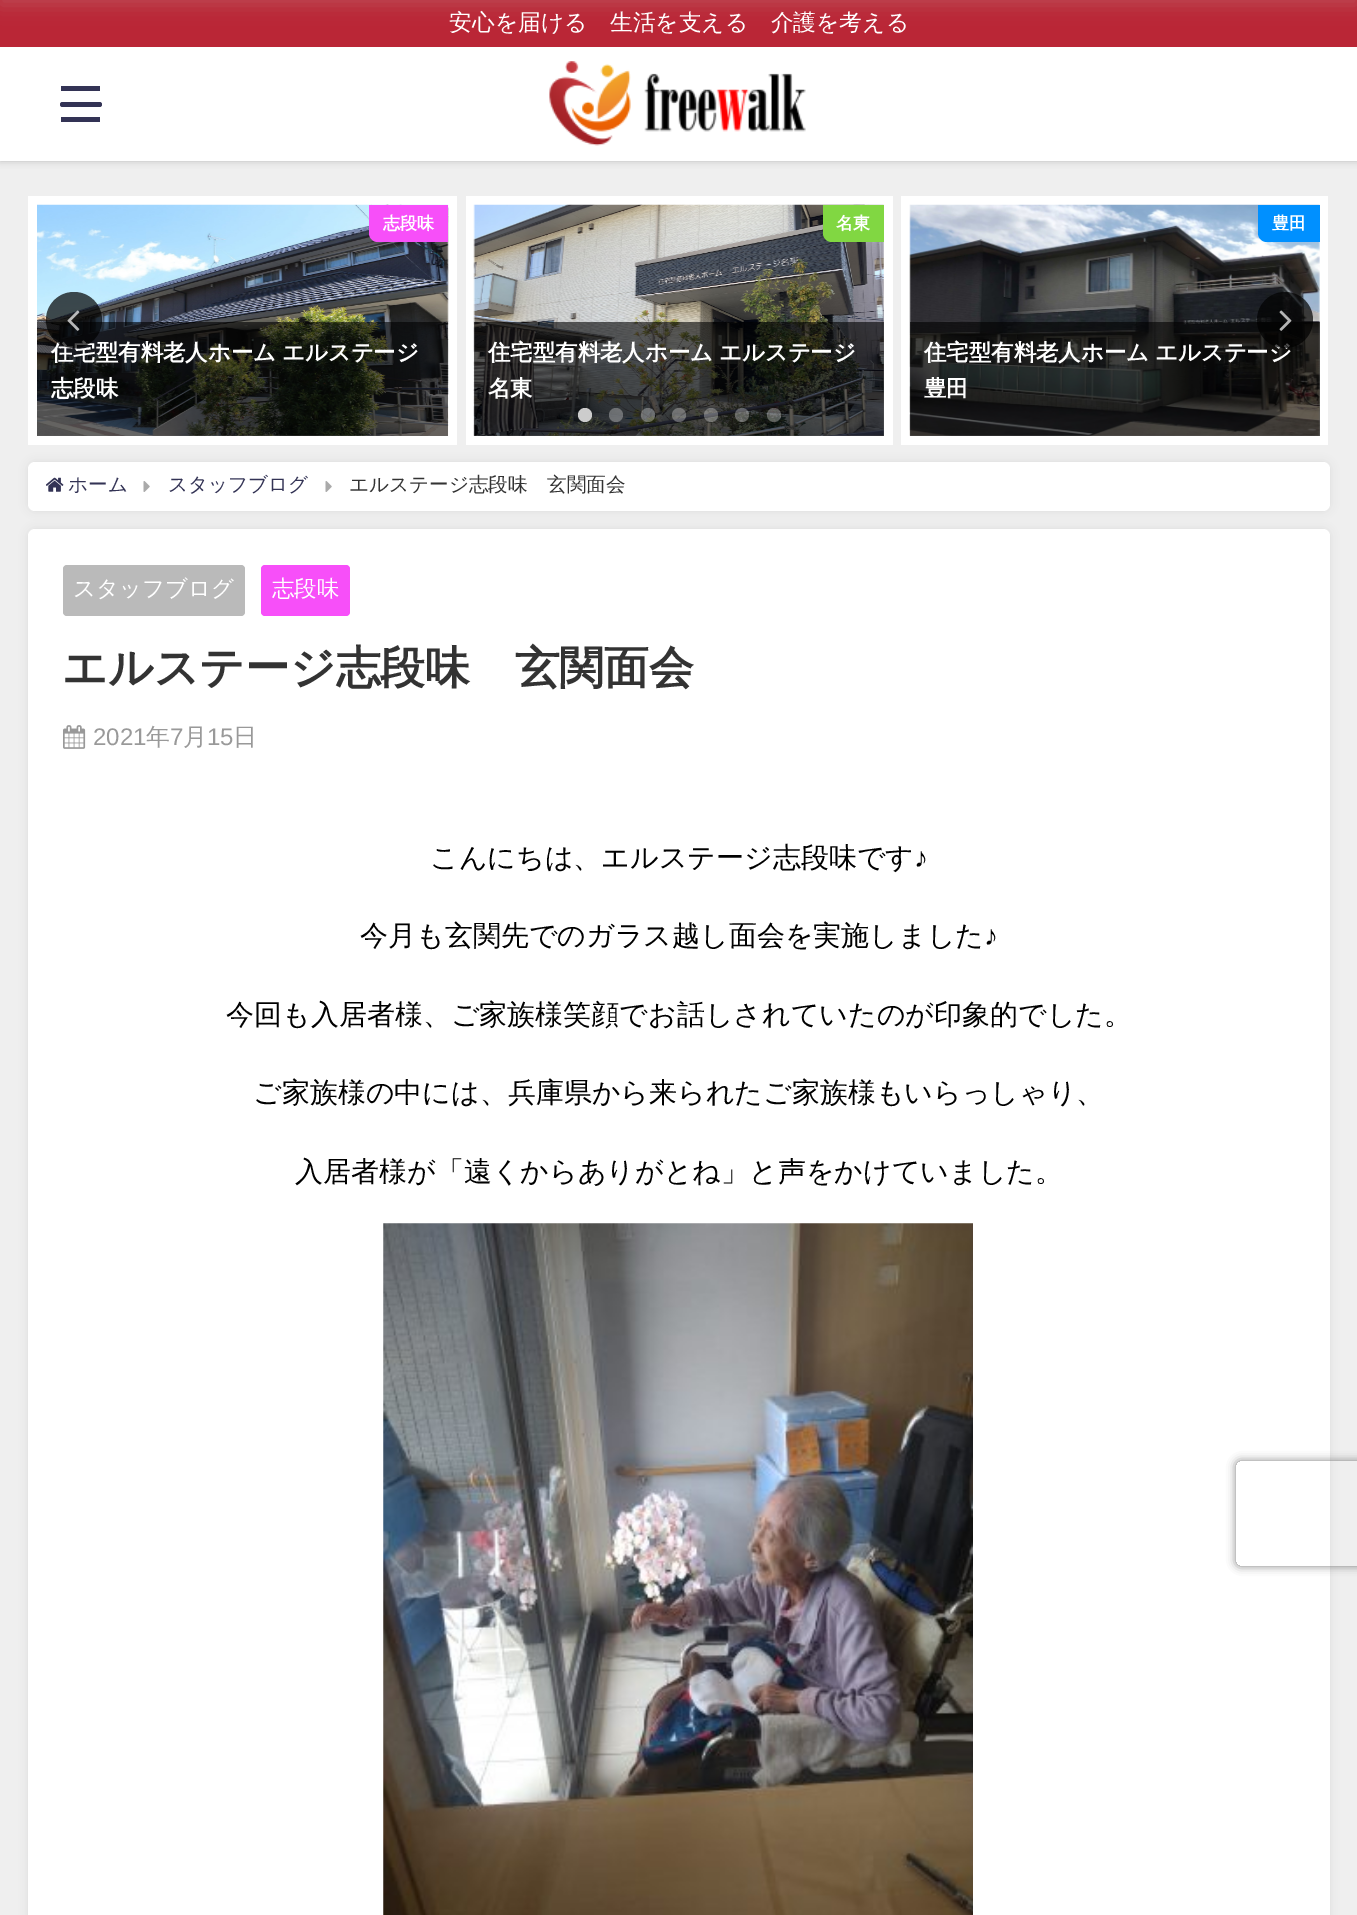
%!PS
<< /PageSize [1357 1915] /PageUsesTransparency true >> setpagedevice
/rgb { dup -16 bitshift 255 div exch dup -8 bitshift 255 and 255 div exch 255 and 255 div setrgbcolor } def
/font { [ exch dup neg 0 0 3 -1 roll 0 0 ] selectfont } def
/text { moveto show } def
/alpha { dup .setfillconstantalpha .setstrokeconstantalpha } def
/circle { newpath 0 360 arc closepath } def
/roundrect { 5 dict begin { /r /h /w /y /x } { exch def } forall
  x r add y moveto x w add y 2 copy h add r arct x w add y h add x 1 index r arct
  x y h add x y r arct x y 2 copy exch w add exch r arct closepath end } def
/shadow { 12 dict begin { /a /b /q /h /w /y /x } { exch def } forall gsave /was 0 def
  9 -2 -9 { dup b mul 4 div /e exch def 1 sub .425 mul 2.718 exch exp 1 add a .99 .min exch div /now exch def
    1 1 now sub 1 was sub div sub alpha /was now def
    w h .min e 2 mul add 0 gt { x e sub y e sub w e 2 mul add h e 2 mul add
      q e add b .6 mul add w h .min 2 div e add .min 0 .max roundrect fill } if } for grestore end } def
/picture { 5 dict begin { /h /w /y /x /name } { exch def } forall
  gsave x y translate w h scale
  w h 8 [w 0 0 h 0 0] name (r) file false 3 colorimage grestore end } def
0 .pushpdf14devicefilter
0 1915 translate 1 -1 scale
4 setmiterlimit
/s1 { /WenQuanYiZenHei-Medium 22.75 font 16#FFFFFF rgb } def
/s2 { /WenQuanYiZenHei-Bold 17 font 16#FFFFFF rgb } def
/s3 { /WenQuanYiZenHei-Bold 22.4 font 16#FFFFFF rgb } def
/s4 { /WenQuanYiZenHei-Medium 19.6 font 16#333355 rgb } def
/s5 { /WenQuanYiZenHei-Medium 19.6 font 16#333333 rgb } def
/s6 { /WenQuanYiZenHei-Medium 22.4 font 16#FFFFFF rgb } def
/s7 { /WenQuanYiZenHei-Bold 44.75 font 16#333333 rgb } def
/s8 { /LiberationSans-Regular 24 font 16#999999 rgb } def
/s9 { /WenQuanYiZenHei-Medium 24 font 16#999999 rgb } def
/s10 { /WenQuanYiZenHei-Medium 28 font 16#000000 rgb } def
/s11 { /LiberationSans-Regular 28 font 16#000000 rgb } def
16#EFEFEF rgb
0 0 1357 1915 rectfill
16#000000 rgb
0 0 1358 161 0 3.5 0.2 shadow
16#BA2636 rgb
0 0 1357 47 rectfill
16#C8C8C8 rgb
0 -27 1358 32 0 9 0.2 shadow
16#FFFFFF rgb
0 47 1357 114 rectfill
s1
(安心を届ける　生活を支える　介護を考える) 449 30 text
16#333355 rgb
61 86 39 5 rectfill
60 102 42 5 2.5 roundrect fill
61 117 39 5 rectfill
(pic1.raw) 549 61 257 85 picture
16#FFFFFF rgb
28 196 429 249 rectfill
(pic2.raw) 37 204 412 232 picture
16#F74FF9 rgb
369 205 moveto 448 205 lineto 448 242 lineto 378 242 lineto 373 242 369 238 369 233 curveto closepath fill
s2
(志段味) 383 229 text
0.6 alpha
16#000000 rgb
37 322 411 114 rectfill
/WenQuanYiZenHei-Bold 22.4 font
1 alpha
16#FFFFFF rgb
51 360 moveto -1 0 32 (住宅型有料老人ホーム エルステージ) widthshow
(志段味) 51 396 text
466 196 427 249 rectfill
(pic3.raw) 473 204 411 232 picture
16#81D742 rgb
823 205 moveto 884 205 lineto 884 242 lineto 832 242 lineto 827 242 823 238 823 233 curveto closepath fill
s2
(名東) 836 229 text
0.6 alpha
16#000000 rgb
474 322 410 114 rectfill
/WenQuanYiZenHei-Bold 22.4 font
1 alpha
16#FFFFFF rgb
488 360 moveto -1 0 32 (住宅型有料老人ホーム エルステージ) widthshow
(名東) 488 396 text
901 196 427 249 rectfill
(pic4.raw) 909 204 411 232 picture
16#0090FF rgb
1258 205 moveto 1320 205 lineto 1320 242 lineto 1267 242 lineto 1262 242 1258 238 1258 233 curveto closepath fill
s2
(豊田) 1272 229 text
0.6 alpha
16#000000 rgb
910 322 410 114 rectfill
/WenQuanYiZenHei-Bold 22.4 font
1 alpha
16#FFFFFF rgb
924 360 moveto -1 0 32 (住宅型有料老人ホーム エルステージ) widthshow
(豊田) 924 396 text
0.7 alpha
16#000000 rgb
74 320 28 circle fill
1 alpha
(pic5.raw) 67 310 13 21 picture
0.7 alpha
1285 320 28 circle fill
1 alpha
(pic6.raw) 1279 310 13 21 picture
16#CCCCCC rgb
585 415 7 circle fill
0.3 alpha
16#FFFFFF rgb
616 415 7 circle fill
648 415 7 circle fill
679 415 7 circle fill
711 415 7 circle fill
742 415 7 circle fill
774 415 7 circle fill
1 alpha
16#969696 rgb
28 462 1302 49 7 4.5 0.2 shadow
16#FFFFFF rgb
28 462 1302 49 7 roundrect fill
(pic7.raw) 46 477 18 15 picture
s4
(ホーム) 68 491 text
(pic8.raw) 143 481 7 11 picture
(スタッフブログ) 168 491 text
(pic8.raw) 325 481 7 11 picture
s5
(エルステージ志段味　玄関面会) 349 491 text
16#969696 rgb
28 529 1302 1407 7 4.5 0.2 shadow
16#FFFFFF rgb
28 529 1302 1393 7 roundrect fill
16#BABABA rgb
63 565 182 51 4 roundrect fill
s6
(スタッフブログ) 73 596 text
16#F74FF9 rgb
261 565 89 51 4 roundrect fill
s6
(志段味) 272 596 text
s7
(エルステージ志段味　玄関面会) 62 683 text
(pic9.raw) 63 725 23 24 picture
s8
(2021) 93 745 text
s9
(年) 146 745 text
s8
(7) 170 745 text
s9
(月) 183 745 text
s8
(15) 207 745 text
s9
(日) 233 745 text
s10
(こんにちは、エルステージ志段味です) 430 867 text
s11
(♪) 914 867 text
s10
(今月も玄関先でのガラス越し面会を実施しました) 360 945 text
s11
(♪) 984 945 text
s10
(今回も入居者様、ご家族様笑顔でお話しされていたのが印象的でした。) 226 1024 text
(ご家族様の中には、兵庫県から来られたご家族様もいらっしゃり、) 253 1102 text
(入居者様が「遠くからありがとね」と声をかけていました。) 295 1181 text
(pic10.raw) 383 1223 590 692 picture
gsave
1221 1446 moveto 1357 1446 lineto 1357 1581 lineto 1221 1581 lineto closepath 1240 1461 moveto 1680 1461 lineto 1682 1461 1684 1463 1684 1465 curveto 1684 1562 lineto 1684 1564 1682 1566 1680 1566 curveto 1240 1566 lineto 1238 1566 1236 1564 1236 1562 curveto 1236 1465 lineto 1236 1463 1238 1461 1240 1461 curveto closepath eoclip newpath
16#808080 rgb
1236 1461 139 105 4 4.5 1 shadow
grestore
.poppdf14devicefilter showpage
